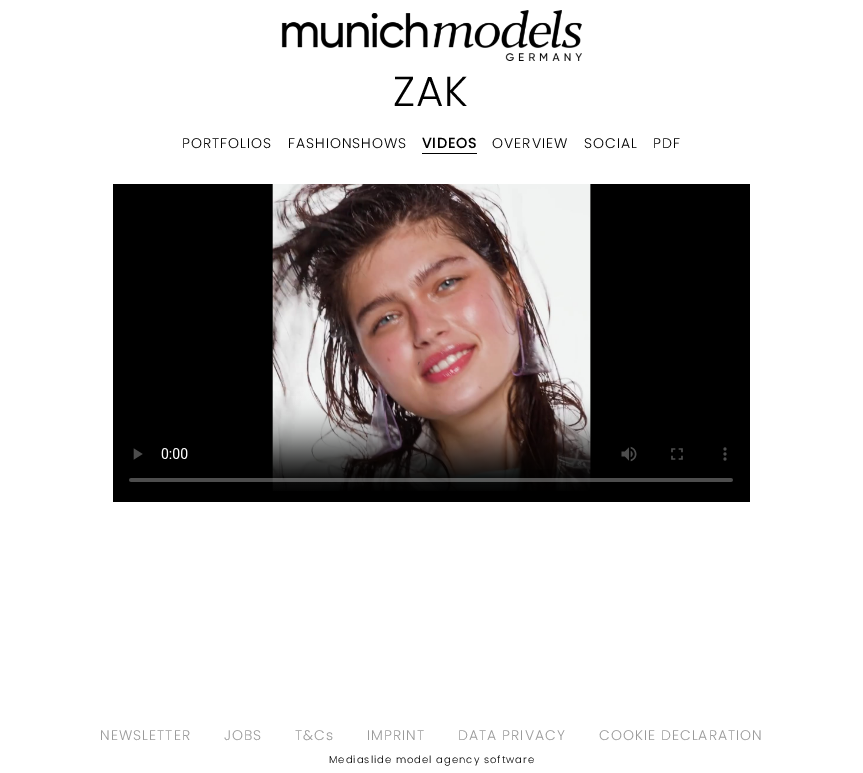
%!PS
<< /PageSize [863 773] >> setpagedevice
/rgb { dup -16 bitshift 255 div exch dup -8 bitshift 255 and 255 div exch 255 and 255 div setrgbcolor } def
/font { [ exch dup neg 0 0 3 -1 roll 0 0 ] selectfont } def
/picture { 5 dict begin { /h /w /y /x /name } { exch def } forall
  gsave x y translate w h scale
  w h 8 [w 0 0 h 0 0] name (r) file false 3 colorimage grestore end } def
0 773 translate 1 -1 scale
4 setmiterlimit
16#FFFFFF rgb
0 0 863 773 rectfill
(pic1.raw) 281 10 301 51 picture
/Poppins-Light 42 font
16#000000 rgb
393 106 moveto 1 0 (ZAK) ashow
/Poppins-Light 14 font
182 148 moveto 1 0 (PORTFOLIOS) ashow
288 148 moveto 1 0 (FASHIONSHOWS) ashow
/Poppins-Bold 14 font
422 148 moveto 1 0 (VIDEOS) ashow
422 153 55 1 rectfill
/Poppins-Light 14 font
492 148 moveto 1 0 (OVERVIEW) ashow
584 148 moveto 1 0 (SOCIAL) ashow
653 148 moveto 1 0 (PDF) ashow
113 184 637 318 rectfill
(pic2.raw) 129 184 604 307 picture
16#999999 rgb
100 740 moveto 1 0 (NEWSLETTER) ashow
224 740 moveto 1 0 (JOBS) ashow
295 740 moveto 1 0 (T&Cs) ashow
367 740 moveto 1 0 (IMPRINT) ashow
458 740 moveto 1 0 (DATA PRIVACY) ashow
599 740 moveto 1 0 (COOKIE DECLARATION) ashow
/Poppins-Light 10 font
16#000000 rgb
329 763 moveto 1 0 (Mediaslide model agency software) ashow
showpage
